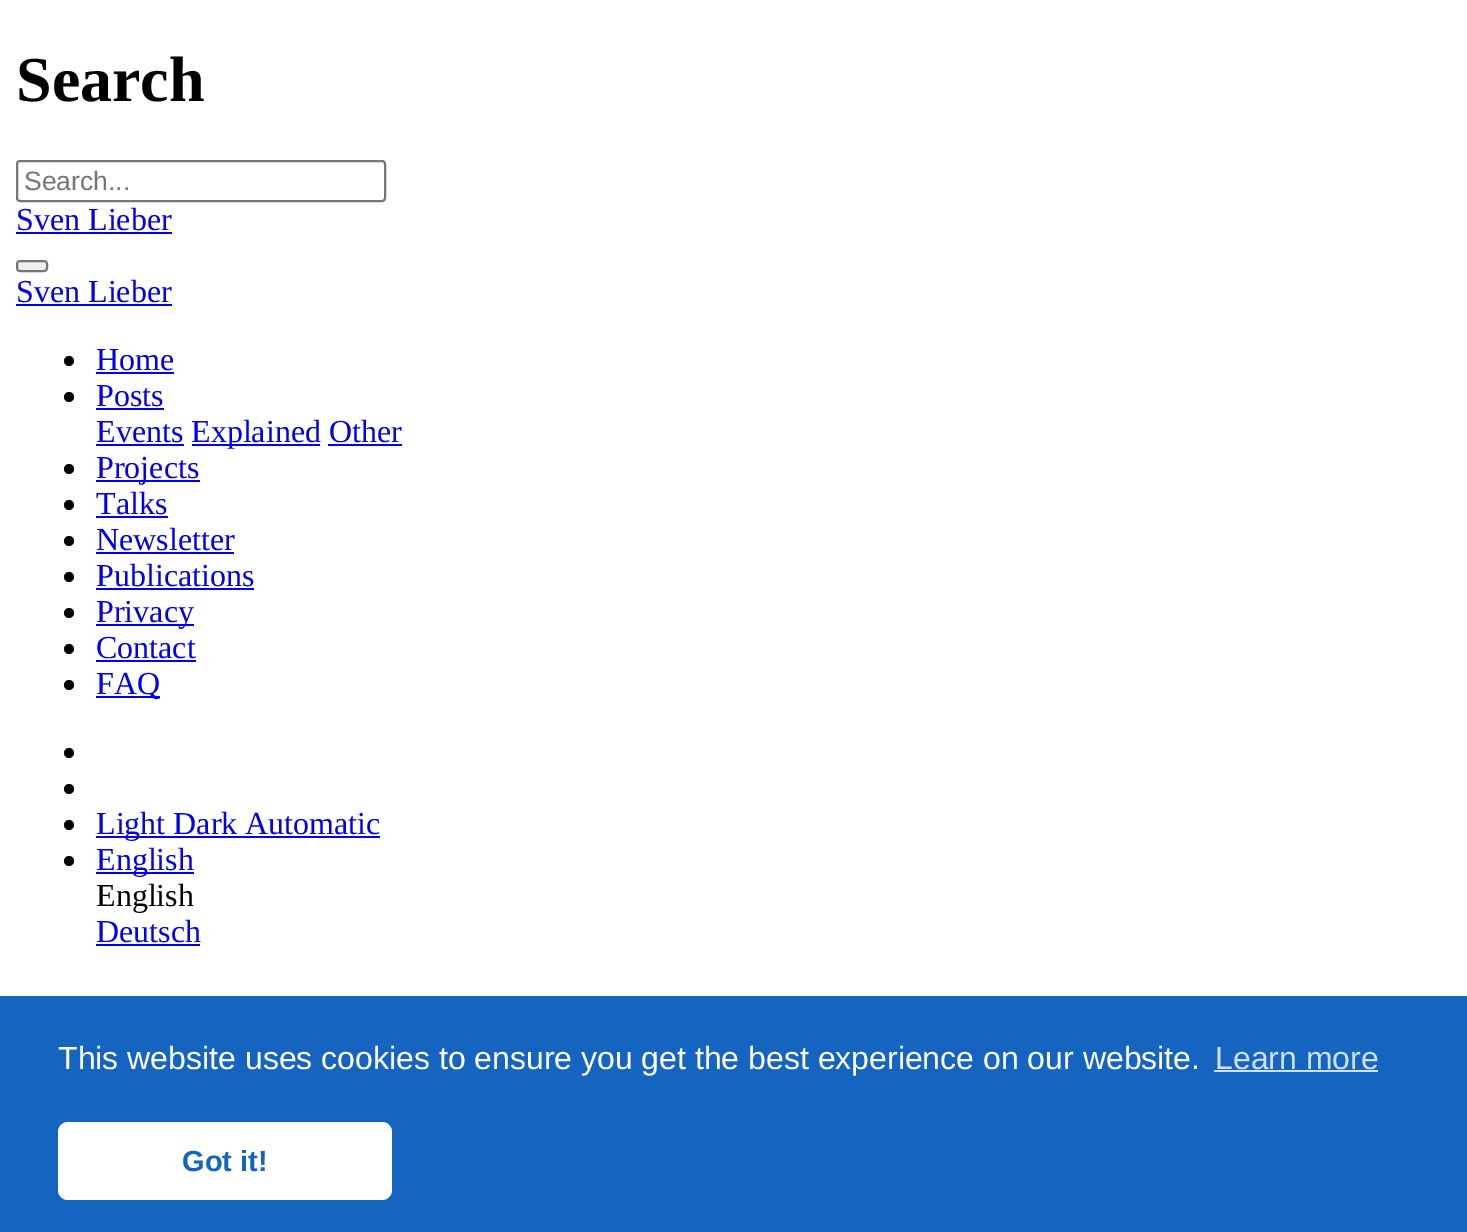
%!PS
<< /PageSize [1467 1232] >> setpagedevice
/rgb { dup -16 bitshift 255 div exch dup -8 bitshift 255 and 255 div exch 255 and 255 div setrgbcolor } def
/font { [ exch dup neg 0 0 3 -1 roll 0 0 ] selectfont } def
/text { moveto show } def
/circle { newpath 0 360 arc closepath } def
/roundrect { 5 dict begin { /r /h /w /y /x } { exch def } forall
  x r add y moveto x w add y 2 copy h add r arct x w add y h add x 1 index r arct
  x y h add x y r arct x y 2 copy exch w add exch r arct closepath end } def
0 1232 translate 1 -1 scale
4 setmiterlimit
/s1 { /LiberationSerif-Bold 64 font 16#000000 rgb } def
/s2 { /LiberationSans-Regular 26.5 font 16#757575 rgb } def
/s3 { /LiberationSerif-Regular 32 font 16#0000EE rgb } def
/s4 { /LiberationSerif-Regular 32 font 16#000000 rgb } def
/s5 { /LiberationSans-Regular 32 font 16#FFFFFF rgb } def
/s6 { /LiberationSans-Regular 32 font 16#D0E0F2 rgb } def
/s7 { /LiberationSans-Bold 29 font 16#1565C0 rgb } def
16#FFFFFF rgb
0 0 1467 1232 rectfill
s1
(Search) 16 101 text
16#767676 rgb
2 setlinewidth
17 161 368 40 3 roundrect stroke
s2
(Search...) 24 190 text
s3
(Sven Lieber) 16 230 text
16 232 156 2 rectfill
16#EFEFEF rgb
17 261 30 10 3 roundrect gsave fill grestore
16#767676 rgb
stroke
s3
(Sven Lieber) 16 302 text
16 304 156 2 rectfill
16#000000 rgb
69 361 5 circle fill
s3
(Home) 96 370 text
96 372 78 2 rectfill
16#000000 rgb
69 397 5 circle fill
s3
(Posts) 96 406 text
96 408 68 2 rectfill
(Events) 96 442 text
96 444 88 2 rectfill
192 444 128 2 rectfill
(Explained Other) 191 442 text
328 444 74 2 rectfill
16#000000 rgb
69 469 5 circle fill
16#0000EE rgb
96 480 104 2 rectfill
(Projects) 96 478 text
16#000000 rgb
69 505 5 circle fill
s3
(Talks) 96 514 text
96 516 72 2 rectfill
16#000000 rgb
69 541 5 circle fill
s3
(Newsletter) 96 550 text
96 552 138 2 rectfill
16#000000 rgb
69 577 5 circle fill
s3
(Publications) 96 586 text
96 588 158 2 rectfill
16#000000 rgb
69 613 5 circle fill
16#0000EE rgb
96 624 98 2 rectfill
(Privacy) 96 622 text
16#000000 rgb
69 649 5 circle fill
s3
(Contact) 96 658 text
96 660 100 2 rectfill
16#000000 rgb
69 685 5 circle fill
16#0000EE rgb
96 696 64 2 rectfill
(FAQ) 96 694 text
16#000000 rgb
69 753 5 circle fill
69 789 5 circle fill
69 825 5 circle fill
16#0000EE rgb
96 836 284 2 rectfill
(Light Dark Automatic) 96 834 text
16#000000 rgb
69 861 5 circle fill
16#0000EE rgb
96 872 98 2 rectfill
(English) 96 870 text
s4
(English) 96 906 text
s3
(Deutsch) 96 942 text
96 944 104 2 rectfill
16#1565C0 rgb
0 996 1467 236 rectfill
s5
(This website uses cookies to ensure you get the best experience on our website.) 58 1069 text
s6
(Learn more) 1215 1069 text
1214 1070 164 2 rectfill
16#FFFFFF rgb
58 1122 334 78 10 roundrect fill
s7
(Got it!) 182 1171 text
showpage
